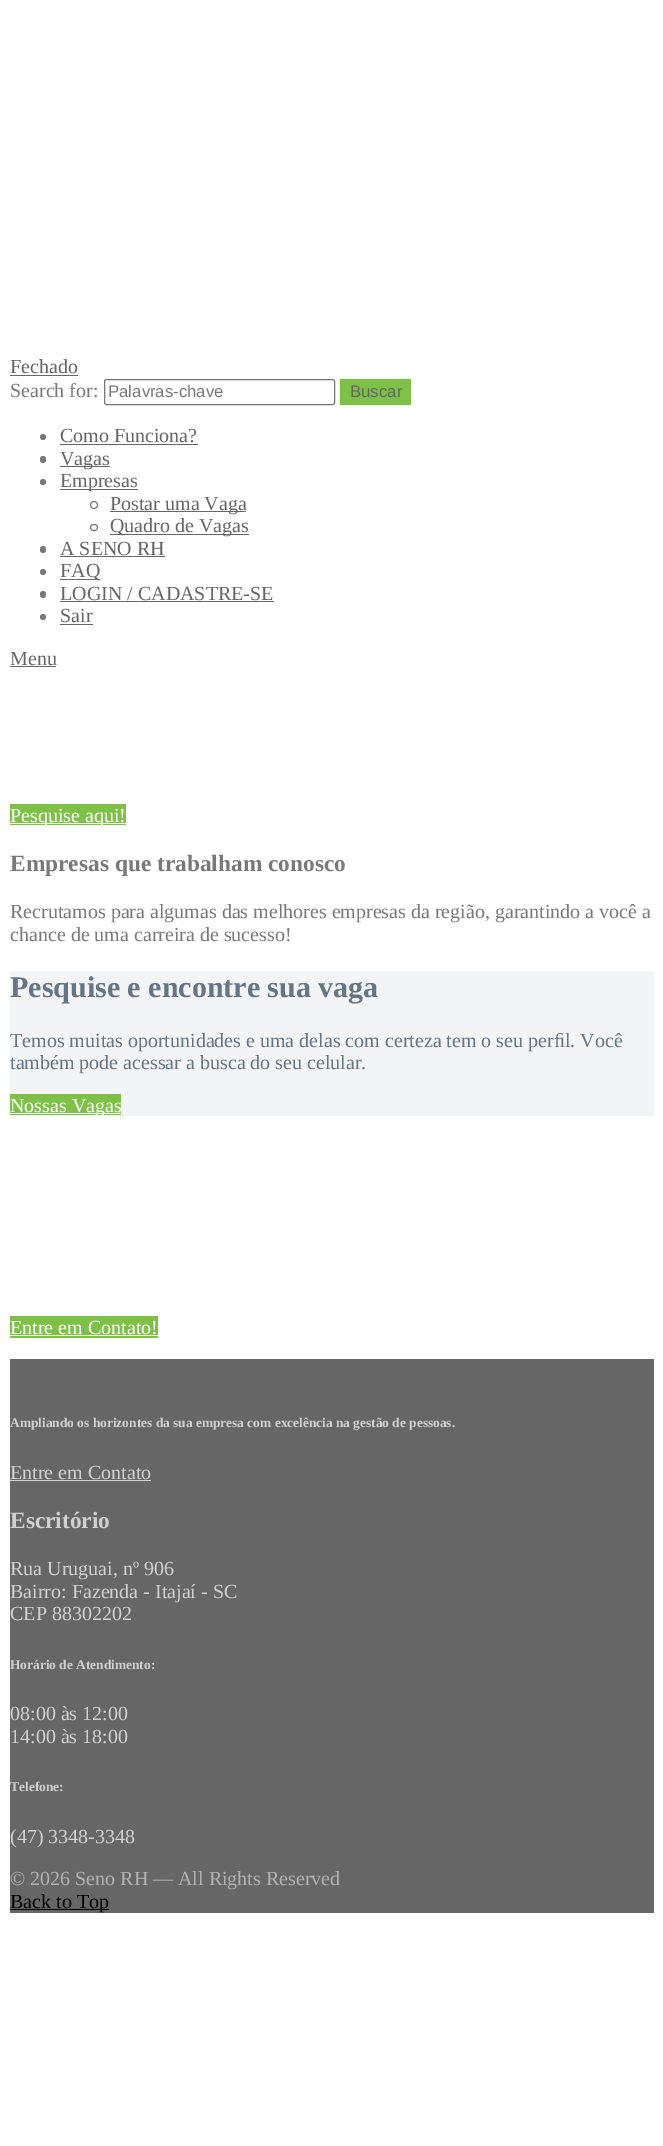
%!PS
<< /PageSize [663 2146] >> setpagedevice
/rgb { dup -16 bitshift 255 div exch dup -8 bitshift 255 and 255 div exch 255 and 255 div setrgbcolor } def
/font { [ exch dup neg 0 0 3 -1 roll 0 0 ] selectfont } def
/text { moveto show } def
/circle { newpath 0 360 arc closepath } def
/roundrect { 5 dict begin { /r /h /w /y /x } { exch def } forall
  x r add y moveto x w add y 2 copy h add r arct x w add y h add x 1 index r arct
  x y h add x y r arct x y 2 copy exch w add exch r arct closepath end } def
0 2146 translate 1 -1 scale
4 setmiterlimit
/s1 { /LiberationSerif-Regular 20 font 16#666666 rgb } def
/s2 { /LiberationSerif-Regular 20 font 16#797979 rgb } def
/s3 { /LiberationSans-Regular 16.75 font 16#797979 rgb } def
/s4 { /LiberationSans-Regular 16.75 font 16#666666 rgb } def
/s5 { /LiberationSerif-Regular 20 font 16#FFFFFF rgb } def
/s6 { /LiberationSerif-Bold 23.4 font 16#797979 rgb } def
/s7 { /LiberationSerif-Bold 30 font 16#647585 rgb } def
/s8 { /LiberationSerif-Regular 20 font 16#647585 rgb } def
/s9 { /LiberationSerif-Bold 13.4 font 16#D1D1D1 rgb } def
/s10 { /LiberationSerif-Regular 20 font 16#D1D1D1 rgb } def
/s11 { /LiberationSerif-Bold 23.4 font 16#D1D1D1 rgb } def
/s12 { /LiberationSerif-Regular 20 font 16#B2B2B2 rgb } def
/s13 { /LiberationSerif-Regular 20 font 16#000000 rgb } def
16#FFFFFF rgb
0 0 663 2146 rectfill
s1
(Fechado) 10 373 text
10 375 68 1 rectfill
s2
(Search for:) 10 397 text
16#767676 rgb
104.5 379.5 230 25 2 roundrect stroke
s3
(Palavras-chave) 108 397 text
16#7DC246 rgb
340 379 71 26 rectfill
s4
(Buscar) 350 397 text
16#797979 rgb
43 437 3 circle fill
s1
(Como Funciona?) 60 442 text
60 444 138 1 rectfill
16#797979 rgb
40 456 6 7 3 roundrect fill
16#666666 rgb
60 466 50 1 rectfill
(Vagas) 60 465 text
16#797979 rgb
43 482 3 circle fill
16#666666 rgb
60 489 78 1 rectfill
(Empresas) 60 487 text
16#797979 rgb
94 505 3.5 circle stroke
16#666666 rgb
110 511 136 1 rectfill
(Postar uma Vaga) 110 510 text
16#797979 rgb
90.5 524.5 7 6 3 roundrect stroke
16#666666 rgb
110 534 139 1 rectfill
(Quadro de Vagas) 110 532 text
16#797979 rgb
40 546 6 7 3 roundrect fill
s1
(A SENO RH) 60 555 text
60 556 105 1 rectfill
16#797979 rgb
43 572 3 circle fill
16#666666 rgb
60 579 40 1 rectfill
(FAQ) 60 577 text
16#797979 rgb
40 591 6 7 3 roundrect fill
s1
(LOGIN / CADASTRE-SE) 60 600 text
60 601 214 1 rectfill
16#797979 rgb
43 617 3 circle fill
s1
(Sair) 60 622 text
60 624 33 1 rectfill
(Menu) 10 665 text
10 666 46 1 rectfill
16#7DC246 rgb
10 804 116 21 rectfill
16#FFFFFF rgb
10 823 116 1 rectfill
(Pesquise aqui!) 10 822 text
s6
(Empresas que trabalham conosco) 10 871 text
s2
(Recrutamos para algumas das melhores empresas da região, garantindo a você a) 10 918 text
(chance de uma carreira de sucesso!) 10 941 text
16#F3F4F6 rgb
10 971 644 145 rectfill
s7
(Pesquise e encontre sua vaga) 10 997 text
s8
(Temos muitas oportunidades e uma delas com certeza tem o seu perﬁl. Você) 10 1047 text
(também pode acessar a busca do seu celular.) 10 1069 text
16#7DC246 rgb
10 1094 111 21 rectfill
16#FFFFFF rgb
10 1113 111 1 rectfill
(Nossas Vagas) 10 1112 text
16#7DC246 rgb
10 1316 148 22 rectfill
s5
(Entre em Contato!) 10 1334 text
10 1335 148 1 rectfill
16#666666 rgb
10 1359 644 554 rectfill
s9
(Ampliando os horizontes da sua empresa com excelência na gestão de pessoas.) 10 1427 text
s10
(Entre em Contato) 10 1479 text
10 1480 141 1 rectfill
s11
(Escritório) 10 1528 text
s10
(Rua Uruguai, nº 906) 10 1575 text
(Bairro: Fazenda - Itajaí - SC) 10 1598 text
(CEP 88302202) 10 1620 text
s9
(Horário de Atendimento:) 10 1669 text
s10
(08:00 às 12:00) 10 1720 text
(14:00 às 18:00) 10 1743 text
s9
(Telefone:) 10 1791 text
s10
(\(47\) 3348-3348) 10 1843 text
s12
(© 2026 Seno RH — All Rights Reserved) 10 1885 text
16#000000 rgb
10 1909 99 1 rectfill
(Back to Top) 10 1908 text
showpage
